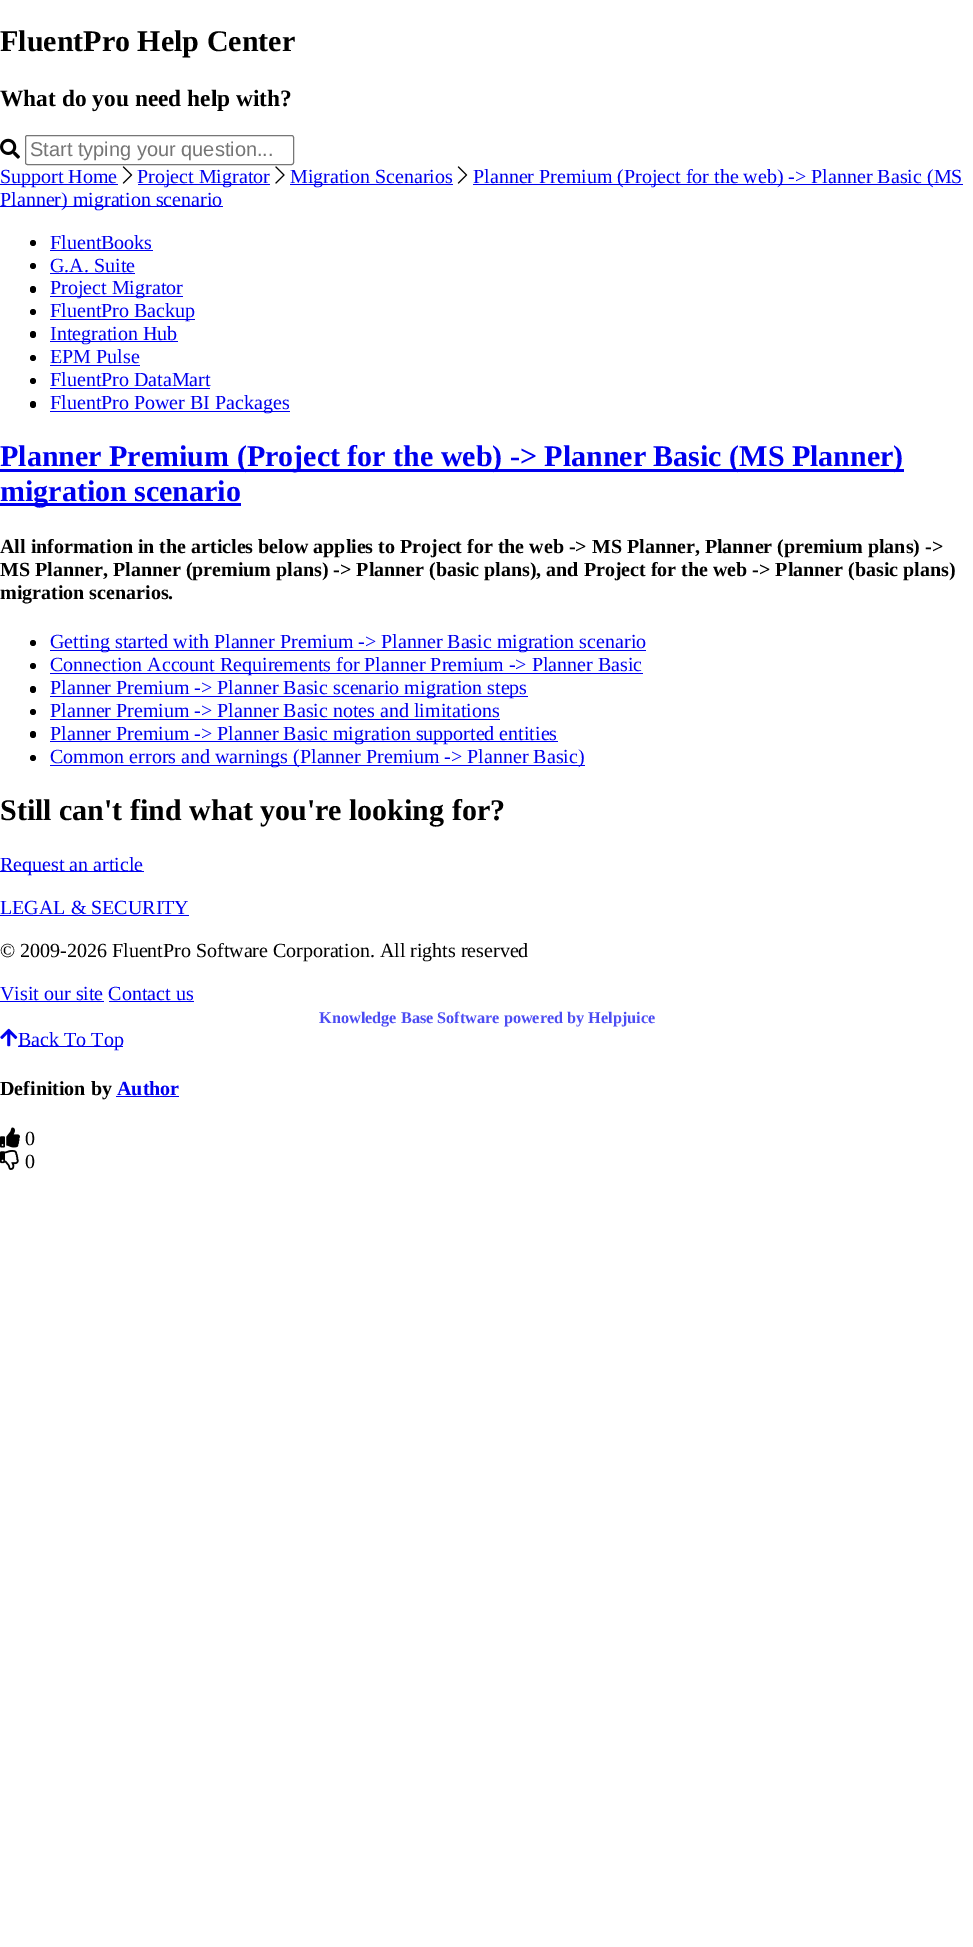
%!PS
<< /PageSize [973 1947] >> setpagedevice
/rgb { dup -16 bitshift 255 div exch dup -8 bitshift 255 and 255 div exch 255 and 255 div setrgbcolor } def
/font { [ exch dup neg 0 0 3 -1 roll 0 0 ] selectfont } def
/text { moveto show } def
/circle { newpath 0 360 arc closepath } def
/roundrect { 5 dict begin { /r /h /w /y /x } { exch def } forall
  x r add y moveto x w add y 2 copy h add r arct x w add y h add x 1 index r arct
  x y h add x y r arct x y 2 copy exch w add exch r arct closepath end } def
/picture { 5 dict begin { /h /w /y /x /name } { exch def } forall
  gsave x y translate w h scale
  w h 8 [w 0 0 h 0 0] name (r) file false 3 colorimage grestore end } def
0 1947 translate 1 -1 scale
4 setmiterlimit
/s1 { /LiberationSerif-Bold 30 font 16#000000 rgb } def
/s2 { /LiberationSerif-Bold 23.4 font 16#000000 rgb } def
/s3 { /LiberationSans-Regular 20 font 16#757575 rgb } def
/s4 { /LiberationSerif-Regular 20 font 16#0000EE rgb } def
/s5 { /LiberationSerif-Bold 30 font 16#0000EE rgb } def
/s6 { /LiberationSerif-Bold 20 font 16#000000 rgb } def
/s7 { /LiberationSerif-Regular 20 font 16#000000 rgb } def
/s8 { /LiberationSerif-Bold 16.25 font 16#4D4DF3 rgb } def
/s9 { /LiberationSerif-Bold 20 font 16#0000EE rgb } def
16#FFFFFF rgb
0 0 973 1947 rectfill
s1
(FluentPro Help Center) 0 51 text
s2
(What do you need help with?) 0 106 text
(pic1.raw) 0 138 20 21 picture
16#767676 rgb
25.5 135.5 268 29 2 roundrect stroke
s3
(Start typing your question...) 30 156 text
16#0000EE rgb
0 184 118 1 rectfill
s4
(Support Home) 0 183 text
(pic2.raw) 122 166 11 18 picture
138 184 132 1 rectfill
(Project Migrator) 137 183 text
(pic3.raw) 275 166 10 18 picture
290 184 163 1 rectfill
(Migration Scenarios) 290 183 text
(pic2.raw) 457 166 11 18 picture
473 184 490 1 rectfill
(Planner Premium \(Project for the web\) -> Planner Basic \(MS) 473 183 text
0 206 223 1 rectfill
(Planner\) migration scenario) 0 206 text
16#000000 rgb
33 243 3 circle fill
s4
(FluentBooks) 50 249 text
50 250 103 1 rectfill
16#000000 rgb
33 266 3 circle fill
s4
(G.A. Suite) 50 272 text
50 273 85 1 rectfill
16#000000 rgb
30 286 6 7 3 roundrect fill
16#0000EE rgb
50 296 133 1 rectfill
(Project Migrator) 50 294 text
16#000000 rgb
33 312 3 circle fill
16#0000EE rgb
50 319 145 1 rectfill
(FluentPro Backup) 50 317 text
16#000000 rgb
30 331 6 7 3 roundrect fill
16#0000EE rgb
50 341 128 1 rectfill
(Integration Hub) 50 340 text
16#000000 rgb
33 358 3 circle fill
s4
(EPM Pulse) 50 363 text
50 365 90 1 rectfill
16#000000 rgb
33 381 3 circle fill
s4
(FluentPro DataMart) 50 386 text
50 388 160 1 rectfill
16#000000 rgb
30 401 6 7 3 roundrect fill
16#0000EE rgb
50 411 240 1 rectfill
(FluentPro Power BI Packages) 50 409 text
0 469 904 3 rectfill
s5
(Planner Premium \(Project for the web\) -> Planner Basic \(MS Planner\)) 0 466 text
0 503 241 3 rectfill
(migration scenario) 0 501 text
s6
(All information in the articles below applies to Project for the web -> MS Planner, Planner \(premium plans\) ->) 0 553 text
(MS Planner, Planner \(premium plans\) -> Planner \(basic plans\), and Project for the web -> Planner \(basic plans\)) 0 576 text
(migration scenarios.) 0 599 text
33 643 3 circle fill
16#0000EE rgb
50 650 596 1 rectfill
s4
(Getting started with Planner Premium -> Planner Basic migration scenario) 50 648 text
16#000000 rgb
33 666 3 circle fill
16#0000EE rgb
50 673 593 1 rectfill
(Connection Account Requirements for Planner Premium -> Planner Basic) 50 671 text
16#000000 rgb
30 686 6 7 3 roundrect fill
16#0000EE rgb
50 696 478 1 rectfill
(Planner Premium -> Planner Basic scenario migration steps) 50 694 text
16#000000 rgb
33 712 3 circle fill
s4
(Planner Premium -> Planner Basic notes and limitations) 50 717 text
50 719 450 1 rectfill
16#000000 rgb
30 731 6 7 3 roundrect fill
16#0000EE rgb
50 741 508 1 rectfill
(Planner Premium -> Planner Basic migration supported entities) 50 740 text
16#000000 rgb
33 758 3 circle fill
16#0000EE rgb
50 765 535 1 rectfill
(Common errors and warnings \(Planner Premium -> Planner Basic\)) 50 763 text
s1
(Still can't find what you're looking for?) 0 820 text
16#0000EE rgb
0 871 144 1 rectfill
s4
(Request an article) 0 871 text
(LEGAL & SECURITY) 0 914 text
0 915 189 1 rectfill
s7
(© 2009-2026 FluentPro Software Corporation. All rights reserved) 0 957 text
s4
(Visit our site Contact us) 0 1000 text
0 1001 104 1 rectfill
109 1001 85 1 rectfill
s8
(Knowledge Base Software powered by Helpjuice) 319 1023 text
(pic4.raw) 0 1028 18 19 picture
16#0000EE rgb
18 1046 105 1 rectfill
s4
(Back To Top) 18 1046 text
s6
(Definition by) 0 1095 text
s9
(Author) 117 1095 text
116 1096 63 1 rectfill
(pic5.raw) 0 1127 20 21 picture
s7
(0) 25 1145 text
(pic6.raw) 0 1150 19 20 picture
(0) 25 1168 text
showpage
